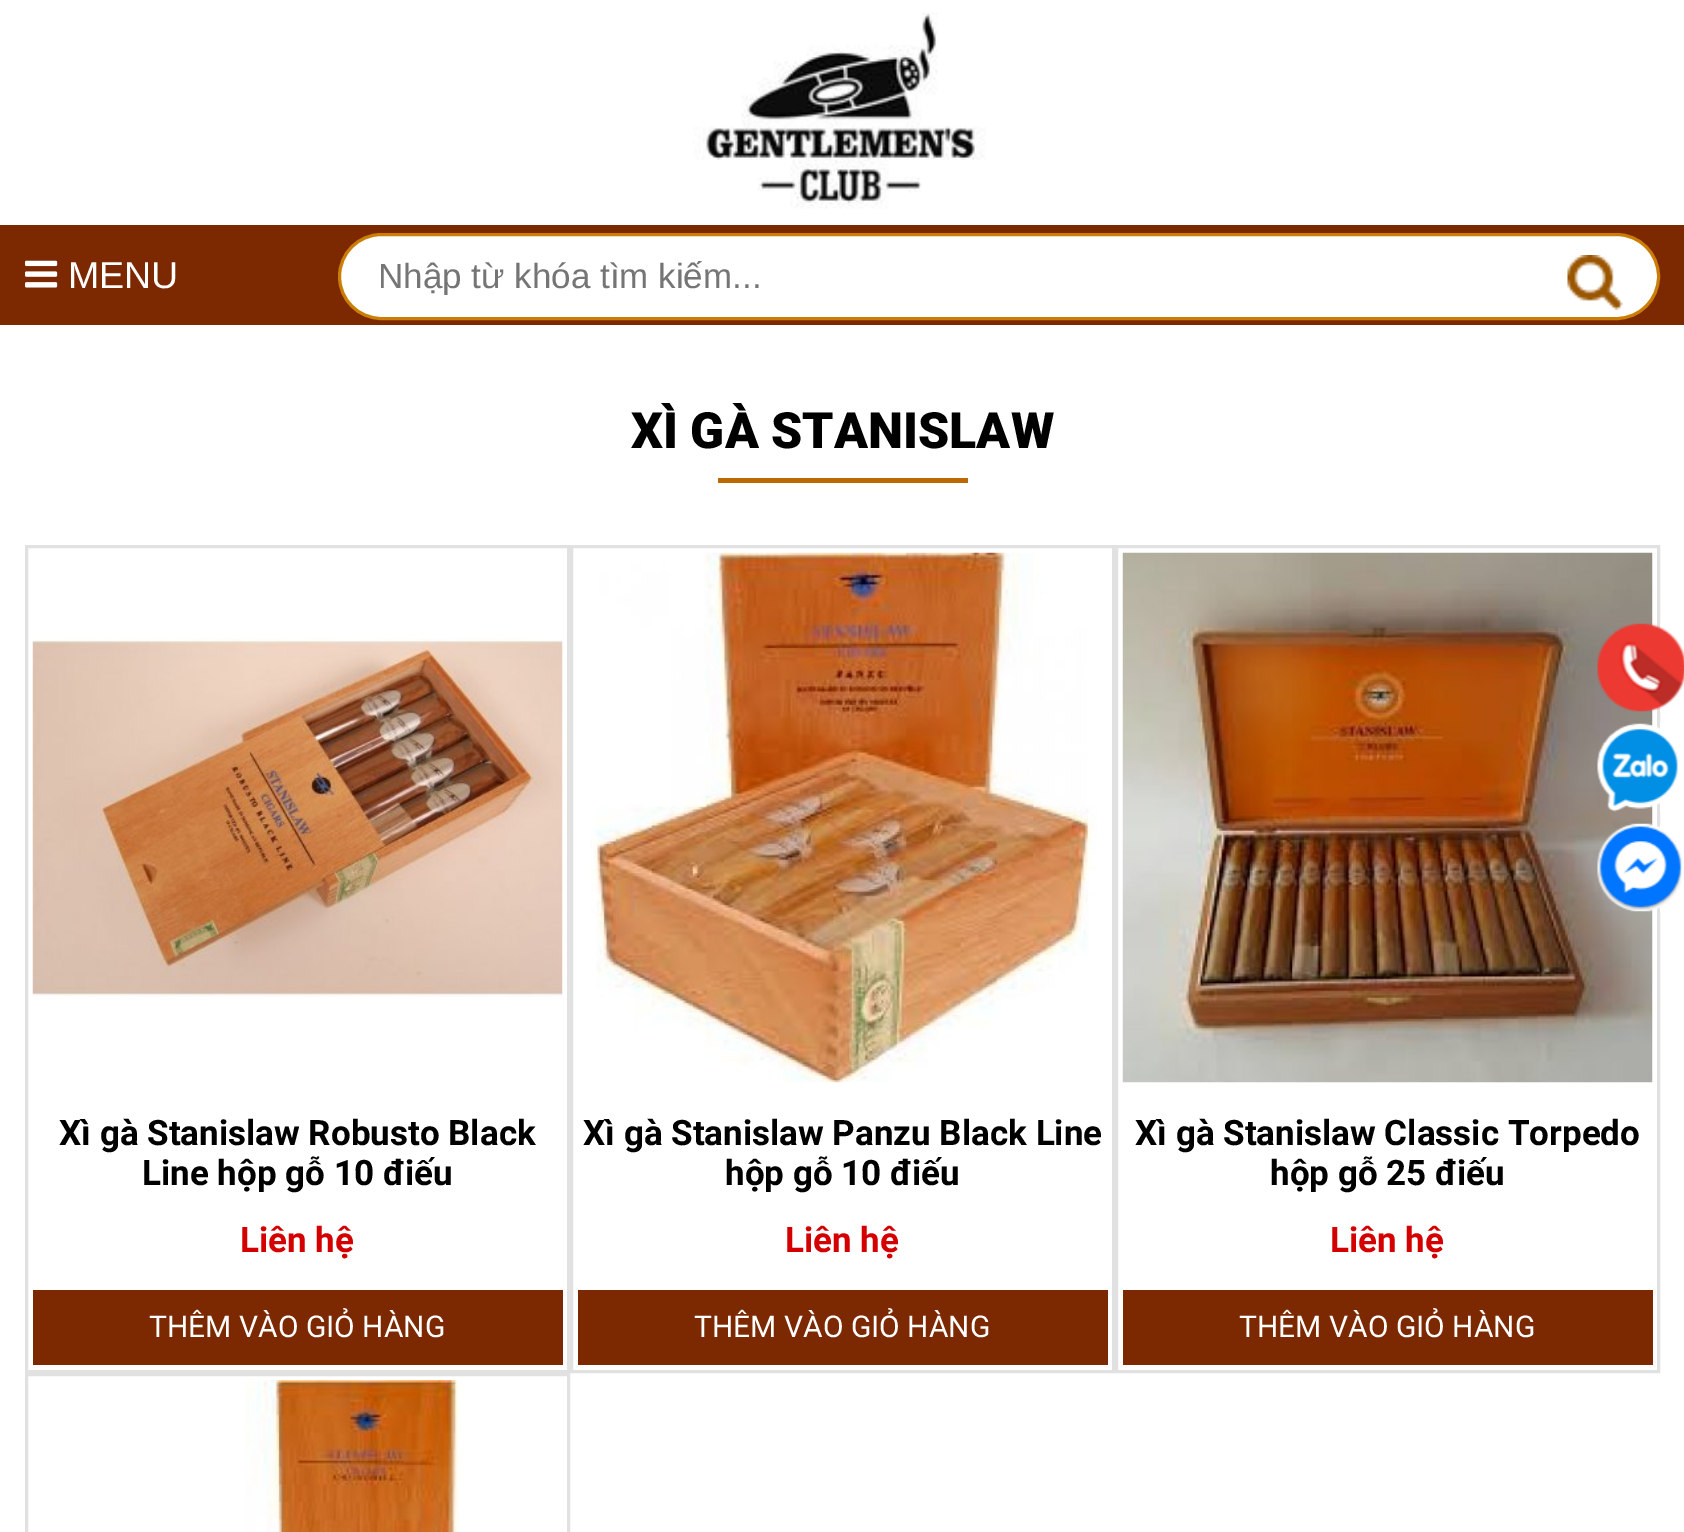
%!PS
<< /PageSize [1684 1532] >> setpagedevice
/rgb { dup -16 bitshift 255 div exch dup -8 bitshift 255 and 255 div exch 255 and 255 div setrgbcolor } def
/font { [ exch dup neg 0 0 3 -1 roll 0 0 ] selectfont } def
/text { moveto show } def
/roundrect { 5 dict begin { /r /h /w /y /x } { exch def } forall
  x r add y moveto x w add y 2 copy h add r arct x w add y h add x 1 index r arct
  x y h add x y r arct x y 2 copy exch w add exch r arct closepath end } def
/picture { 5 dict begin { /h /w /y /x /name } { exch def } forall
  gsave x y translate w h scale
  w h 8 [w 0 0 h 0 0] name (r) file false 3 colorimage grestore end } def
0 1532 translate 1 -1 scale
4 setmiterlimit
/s1 { /LiberationSans-Regular 37.5 font 16#FFFFFF rgb } def
/s2 { /LiberationSans-Regular 35 font 16#757575 rgb } def
/s3 { /Roboto-Black 50 font 16#000000 rgb } def
/s4 { /Roboto-Bold 35 font 16#000000 rgb } def
/s5 { /Roboto-Bold 35 font 16#D40000 rgb } def
/s6 { /Roboto-Regular 30 font 16#FFFFFF rgb } def
16#FFFFFF rgb
0 0 1684 1532 rectfill
(pic1.raw) 693 12 293 197 picture
16#7C2800 rgb
0 225 1684 100 rectfill
(pic2.raw) 25 260 33 28 picture
s1
(MENU) 68 288 text
339.5 234.5 1319 84 42 roundrect gsave fill grestore
16#CC7D06 rgb
3 setlinewidth
stroke
gsave
378 255 1155 40 rectclip
s2
(Nhập từ khóa tìm kiếm...) 378 288 text
grestore
(pic3.raw) 1567 255 56 55 picture
s3
(XÌ GÀ STANISLAW) 631 448 text
16#BB6903 rgb
718 478 250 5 rectfill
16#E1E1E1 rgb
26.5 546.5 542 825 rectstroke
(pic4.raw) 32 638 531 360 picture
s4
(Xì gà Stanislaw Robusto Black) 59 1145 text
(Line hộp gỗ 10 điếu) 142 1185 text
s5
(Liên hệ) 240 1252 text
16#7C2800 rgb
33 1290 530 75 rectfill
s6
(THÊM VÀO GIỎ HÀNG) 149 1337 text
16#E1E1E1 rgb
571.5 546.5 542 825 rectstroke
(pic5.raw) 590 552 507 531 picture
s4
(Xì gà Stanislaw Panzu Black Line) 583 1145 text
(hộp gỗ 10 điếu) 725 1185 text
s5
(Liên hệ) 785 1252 text
16#7C2800 rgb
578 1290 530 75 rectfill
s6
(THÊM VÀO GIỎ HÀNG) 694 1337 text
16#E1E1E1 rgb
1116.5 546.5 542 825 rectstroke
(pic6.raw) 1122 552 531 531 picture
s4
(Xì gà Stanislaw Classic Torpedo) 1135 1145 text
(hộp gỗ 25 điếu) 1270 1185 text
s5
(Liên hệ) 1330 1252 text
16#7C2800 rgb
1123 1290 530 75 rectfill
s6
(THÊM VÀO GIỎ HÀNG) 1239 1337 text
16#E1E1E1 rgb
26.5 1374.5 542 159 rectstroke
(pic7.raw) 245 1380 216 152 picture
(pic8.raw) 1597 623 87 89 picture
(pic9.raw) 1597 723 81 89 picture
(pic10.raw) 1597 823 85 89 picture
showpage
